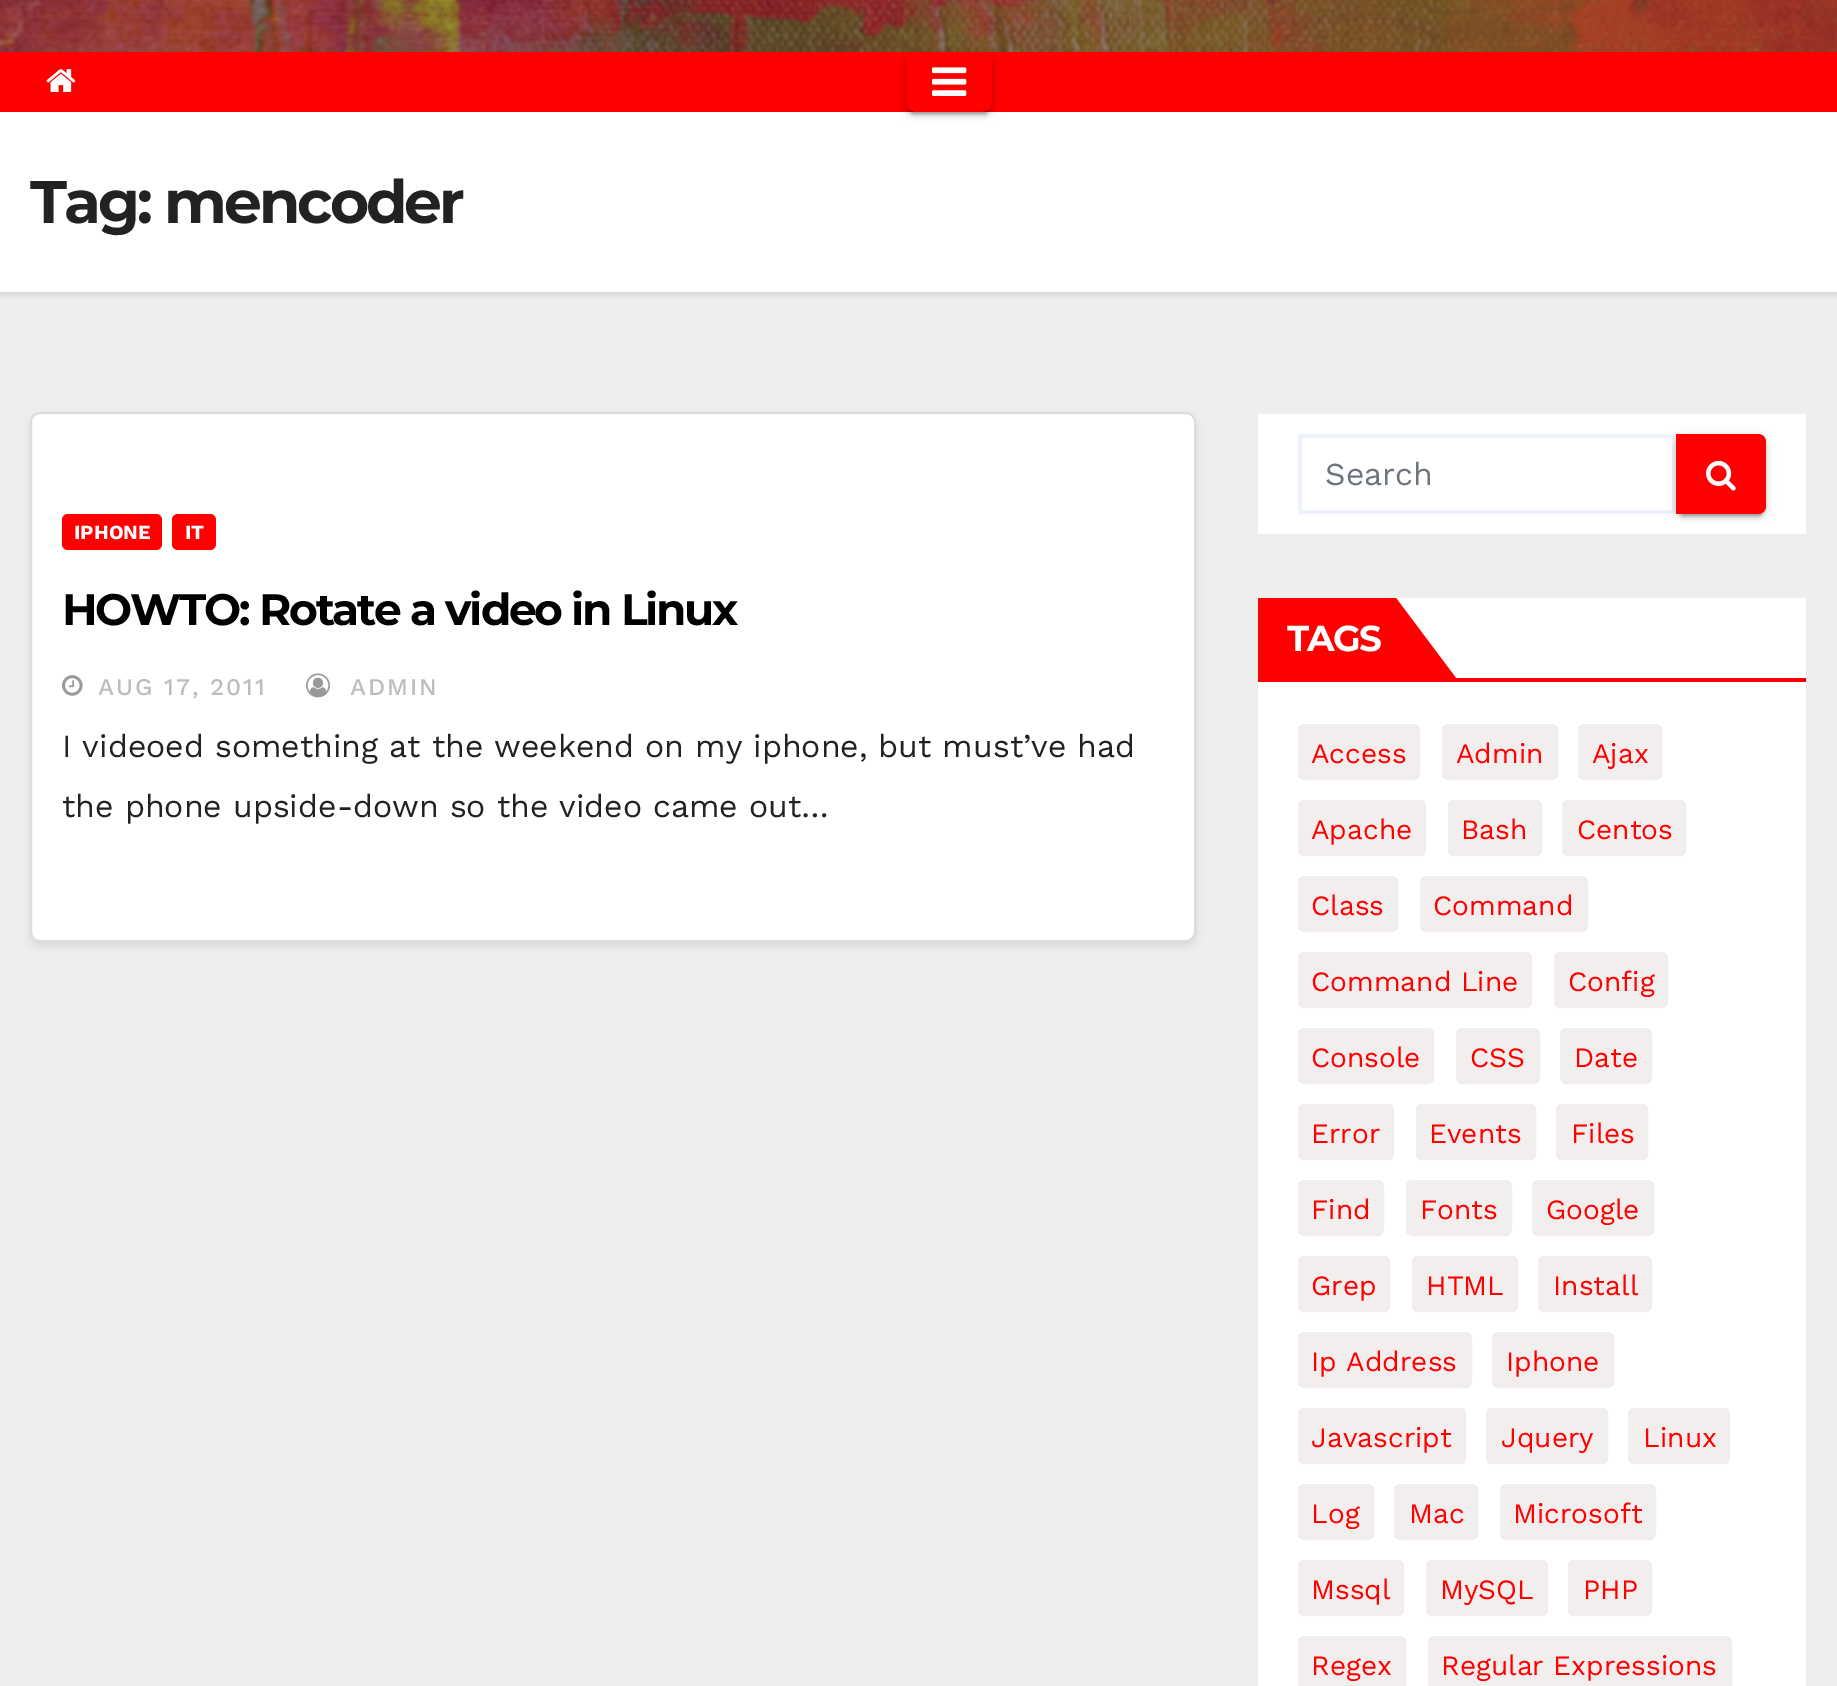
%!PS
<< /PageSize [1837 1686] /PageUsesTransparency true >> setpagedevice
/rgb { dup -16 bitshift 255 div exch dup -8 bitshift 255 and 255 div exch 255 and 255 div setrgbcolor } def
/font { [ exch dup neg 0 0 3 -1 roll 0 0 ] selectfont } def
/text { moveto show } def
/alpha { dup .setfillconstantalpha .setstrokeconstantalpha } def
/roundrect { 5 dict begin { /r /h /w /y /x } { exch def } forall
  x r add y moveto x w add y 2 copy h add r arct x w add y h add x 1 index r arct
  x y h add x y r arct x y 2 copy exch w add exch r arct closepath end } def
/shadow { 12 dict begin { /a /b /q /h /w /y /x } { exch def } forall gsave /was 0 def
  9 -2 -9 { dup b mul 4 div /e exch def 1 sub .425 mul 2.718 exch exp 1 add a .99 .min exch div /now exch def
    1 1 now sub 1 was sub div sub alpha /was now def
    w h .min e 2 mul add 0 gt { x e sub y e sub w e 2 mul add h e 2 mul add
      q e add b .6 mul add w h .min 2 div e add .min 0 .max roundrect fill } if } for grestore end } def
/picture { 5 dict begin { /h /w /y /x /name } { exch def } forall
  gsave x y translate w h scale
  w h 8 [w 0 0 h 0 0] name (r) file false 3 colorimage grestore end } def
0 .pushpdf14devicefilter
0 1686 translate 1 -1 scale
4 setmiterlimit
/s1 { /WorkSans-Bold 20 font 16#FFFFFF rgb } def
/s2 { /WorkSans-Regular 32 font 16#222222 rgb } def
/s3 { /WorkSans-Regular 32 font 16#6C757D rgb } def
/s4 { /WorkSans-Regular 28 font 16#FF0000 rgb } def
16#EEEEEE rgb
0 0 1837 1686 rectfill
(pic1.raw) 0 0 1837 52 picture
16#000000 rgb
0 114 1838 180 0 3 0.15 shadow
16#FF0000 rgb
0 52 1837 60 rectfill
(pic2.raw) 46 69 30 23 picture
16#FFFFFF rgb
0 112 1837 180 rectfill
gsave
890 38 moveto 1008 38 lineto 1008 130 lineto 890 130 lineto closepath 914 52 moveto 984 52 lineto 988.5 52 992 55.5 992 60 curveto 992 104 lineto 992 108.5 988.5 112 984 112 curveto 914 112 lineto 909.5 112 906 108.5 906 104 curveto 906 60 lineto 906 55.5 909.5 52 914 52 curveto closepath eoclip newpath
16#000000 rgb
906 54 86 60 8 5 0.12 shadow
grestore
gsave
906 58 moveto 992 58 lineto 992 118 lineto 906 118 lineto closepath 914 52 moveto 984 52 lineto 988.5 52 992 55.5 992 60 curveto 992 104 lineto 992 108.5 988.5 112 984 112 curveto 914 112 lineto 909.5 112 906 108.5 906 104 curveto 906 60 lineto 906 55.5 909.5 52 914 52 curveto closepath eoclip newpath
16#000000 rgb
910 62 78 52 4 1 0.2 shadow
grestore
gsave
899 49 moveto 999 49 lineto 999 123 lineto 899 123 lineto closepath 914 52 moveto 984 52 lineto 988.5 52 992 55.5 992 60 curveto 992 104 lineto 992 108.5 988.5 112 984 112 curveto 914 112 lineto 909.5 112 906 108.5 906 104 curveto 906 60 lineto 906 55.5 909.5 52 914 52 curveto closepath eoclip newpath
16#000000 rgb
906 56 86 60 8 2 0.14 shadow
grestore
(pic3.raw) 932 67 35 29 picture
/Montserrat-Bold 60 font
16#222222 rgb
30 223 moveto -3 0 (Tag: mencoder) ashow
16#000000 rgb
30 416 1166 530 10 4 0.08 shadow
16#FFFFFF rgb
31 413 1164 528 9 roundrect gsave fill grestore
16#DDDCDC rgb
2 setlinewidth
stroke
16#FF0000 rgb
62 514 100 36 6 roundrect fill
s1
(IPHONE) 74 539 text
16#FF0000 rgb
172 514 44 36 6 roundrect fill
s1
(IT) 185 539 text
/Montserrat-Bold 44 font
16#000000 rgb
62 625 moveto -2.2 0 (HOWTO: Rotate a video in Linux) ashow
(pic4.raw) 62 675 21 21 picture
/WorkSans-Medium 24 font
16#BDBDBD rgb
98 695 moveto 2 0 (AUG 17, 2011) ashow
(pic5.raw) 306 673 24 25 picture
350 695 moveto 2 0 (ADMIN) ashow
s2
(I videoed something at the weekend on my iphone, but must’ve had) 62 757 text
(the phone upside-down so the video came out…) 62 817 text
16#FFFFFF rgb
1258 414 548 120 rectfill
16#EEF3FB rgb
4 setlinewidth
1300 436 374 76 rectstroke
s3
(Search) 1325 485 text
16#000000 rgb
1676 436 90 80 8 5 0.12 shadow
1680 444 82 72 4 1 0.2 shadow
1676 438 90 80 8 2 0.14 shadow
16#FF0000 rgb
1676 434 moveto 1758 434 lineto 1762.5 434 1766 437.5 1766 442 curveto 1766 506 lineto 1766 510.5 1762.5 514 1758 514 curveto 1676 514 lineto closepath fill
(pic6.raw) 1706 460 30 31 picture
16#FFFFFF rgb
1258 598 548 1088 rectfill
16#FF0000 rgb
1258 678 548 4 rectfill
1258 598 138 80 rectfill
/Montserrat-Bold 36 font
16#FFFFFF rgb
1287 651 moveto -2 0 (TAGS) ashow
16#FF0000 rgb
1396 678 moveto 1396 598 lineto 1456 678 lineto closepath fill
16#F3EEEE rgb
1299 725 120 54 5 roundrect gsave fill grestore
2 setlinewidth
stroke
s4
(Access) 1311 763 text
16#F3EEEE rgb
1443 725 114 54 5 roundrect gsave fill grestore
stroke
s4
(Admin) 1456 763 text
16#F3EEEE rgb
1579 725 82 54 5 roundrect gsave fill grestore
stroke
s4
(Ajax) 1592 763 text
16#F3EEEE rgb
1299 801 126 54 5 roundrect gsave fill grestore
stroke
s4
(Apache) 1311 839 text
16#F3EEEE rgb
1449 801 92 54 5 roundrect gsave fill grestore
stroke
s4
(Bash) 1461 839 text
16#F3EEEE rgb
1563 801 122 54 5 roundrect gsave fill grestore
stroke
s4
(Centos) 1577 839 text
16#F3EEEE rgb
1299 877 98 54 5 roundrect gsave fill grestore
stroke
s4
(Class) 1311 915 text
16#F3EEEE rgb
1421 877 166 54 5 roundrect gsave fill grestore
stroke
s4
(Command) 1433 915 text
16#F3EEEE rgb
1299 953 232 54 5 roundrect gsave fill grestore
stroke
s4
(Command Line) 1311 991 text
16#F3EEEE rgb
1555 953 112 54 5 roundrect gsave fill grestore
stroke
s4
(Config) 1568 991 text
16#F3EEEE rgb
1299 1029 134 54 5 roundrect gsave fill grestore
stroke
s4
(Console) 1311 1067 text
16#F3EEEE rgb
1457 1029 82 54 5 roundrect gsave fill grestore
stroke
s4
(CSS) 1470 1067 text
16#F3EEEE rgb
1561 1029 90 54 5 roundrect gsave fill grestore
stroke
s4
(Date) 1574 1067 text
16#F3EEEE rgb
1299 1105 94 54 5 roundrect gsave fill grestore
stroke
s4
(Error) 1311 1143 text
16#F3EEEE rgb
1417 1105 118 54 5 roundrect gsave fill grestore
stroke
s4
(Events) 1429 1143 text
16#F3EEEE rgb
1557 1105 90 54 5 roundrect gsave fill grestore
stroke
s4
(Files) 1571 1143 text
16#F3EEEE rgb
1299 1181 84 54 5 roundrect gsave fill grestore
stroke
s4
(Find) 1311 1219 text
16#F3EEEE rgb
1407 1181 104 54 5 roundrect gsave fill grestore
stroke
s4
(Fonts) 1420 1219 text
16#F3EEEE rgb
1533 1181 120 54 5 roundrect gsave fill grestore
stroke
s4
(Google) 1546 1219 text
16#F3EEEE rgb
1299 1257 90 54 5 roundrect gsave fill grestore
stroke
s4
(Grep) 1311 1295 text
16#F3EEEE rgb
1413 1257 104 54 5 roundrect gsave fill grestore
stroke
s4
(HTML) 1426 1295 text
16#F3EEEE rgb
1539 1257 112 54 5 roundrect gsave fill grestore
stroke
s4
(Install) 1553 1295 text
16#F3EEEE rgb
1299 1333 172 54 5 roundrect gsave fill grestore
stroke
s4
(Ip Address) 1311 1371 text
16#F3EEEE rgb
1493 1333 120 54 5 roundrect gsave fill grestore
stroke
s4
(Iphone) 1506 1371 text
16#F3EEEE rgb
1299 1409 166 54 5 roundrect gsave fill grestore
stroke
s4
(Javascript) 1311 1447 text
16#F3EEEE rgb
1487 1409 120 54 5 roundrect gsave fill grestore
stroke
s4
(Jquery) 1501 1447 text
16#F3EEEE rgb
1629 1409 100 54 5 roundrect gsave fill grestore
stroke
s4
(Linux) 1643 1447 text
16#F3EEEE rgb
1299 1485 74 54 5 roundrect gsave fill grestore
stroke
s4
(Log) 1311 1523 text
16#F3EEEE rgb
1395 1485 82 54 5 roundrect gsave fill grestore
stroke
s4
(Mac) 1409 1523 text
16#F3EEEE rgb
1501 1485 154 54 5 roundrect gsave fill grestore
stroke
s4
(Microsoft) 1513 1523 text
16#F3EEEE rgb
1299 1561 104 54 5 roundrect gsave fill grestore
stroke
s4
(Mssql) 1311 1599 text
16#F3EEEE rgb
1427 1561 120 54 5 roundrect gsave fill grestore
stroke
s4
(MySQL) 1440 1599 text
16#F3EEEE rgb
1569 1561 82 54 5 roundrect gsave fill grestore
stroke
s4
(PHP) 1583 1599 text
16#F3EEEE rgb
1299 1637 106 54 5 roundrect gsave fill grestore
stroke
s4
(Regex) 1311 1675 text
16#F3EEEE rgb
1429 1637 302 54 5 roundrect gsave fill grestore
stroke
s4
(Regular Expressions) 1441 1675 text
.poppdf14devicefilter showpage
